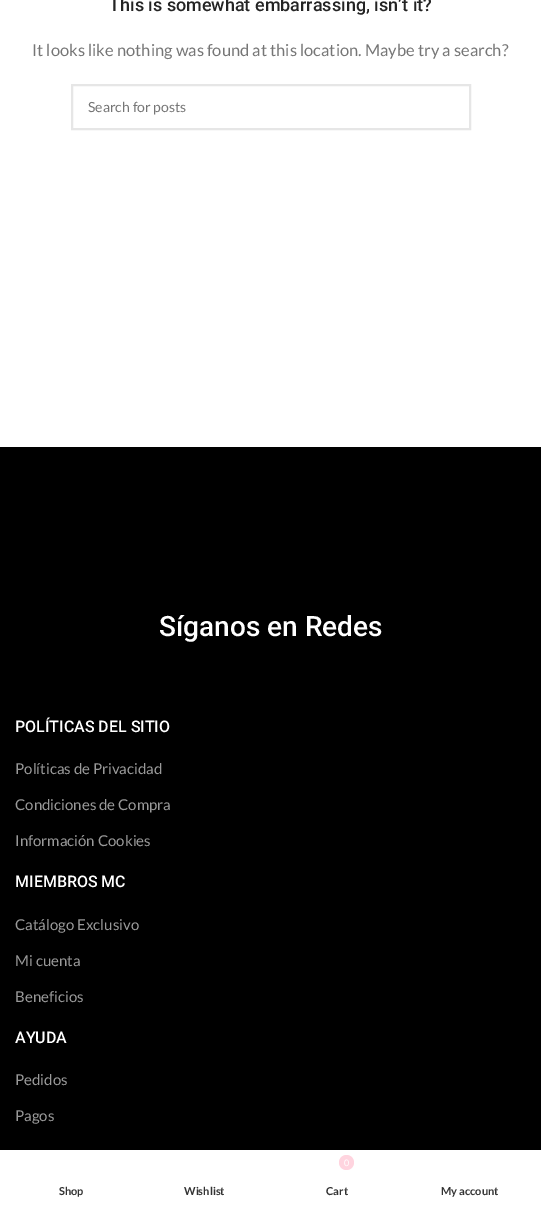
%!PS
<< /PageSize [541 1205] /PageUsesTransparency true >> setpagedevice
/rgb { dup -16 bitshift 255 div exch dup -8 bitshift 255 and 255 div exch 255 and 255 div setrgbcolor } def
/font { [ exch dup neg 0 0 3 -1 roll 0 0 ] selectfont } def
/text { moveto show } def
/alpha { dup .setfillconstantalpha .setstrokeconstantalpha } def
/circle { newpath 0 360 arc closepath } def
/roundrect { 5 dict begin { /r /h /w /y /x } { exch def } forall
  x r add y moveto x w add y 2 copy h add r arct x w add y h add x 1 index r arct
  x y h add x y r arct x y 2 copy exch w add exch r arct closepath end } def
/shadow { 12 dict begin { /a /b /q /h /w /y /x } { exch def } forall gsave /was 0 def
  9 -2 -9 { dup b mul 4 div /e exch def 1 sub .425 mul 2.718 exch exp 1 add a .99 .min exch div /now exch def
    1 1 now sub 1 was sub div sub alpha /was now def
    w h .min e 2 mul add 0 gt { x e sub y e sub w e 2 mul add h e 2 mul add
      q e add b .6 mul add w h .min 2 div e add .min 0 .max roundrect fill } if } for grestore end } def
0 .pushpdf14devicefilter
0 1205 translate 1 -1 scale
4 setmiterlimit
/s1 { /Roboto-Medium 18 font 16#242424 rgb } def
/s2 { /Lato-Regular 16.5 font 16#767676 rgb } def
/s3 { /Lato-Regular 14 font 16#767676 rgb } def
/s4 { /Roboto-Medium 28 font 16#FFFFFF rgb } def
/s5 { /Roboto-Medium 16 font 16#FFFFFF rgb } def
/s6 { /Lato-Regular 15 font 16#999999 rgb } def
/s7 { /Lato-Bold 11 font 16#333333 rgb } def
/s8 { /Lato-Regular 9 font 16#FFFFFF rgb } def
16#FFFFFF rgb
0 0 541 1205 rectfill
s1
(This is somewhat embarrassing, isn’t it?) 109 11 text
s2
(It looks like nothing was found at this location. Maybe try a search?) 32 56 text
16#E6E6E6 rgb
2 setlinewidth
72 85 398 44 rectstroke
s3
(Search for posts) 88 112 text
16#000000 rgb
0 447 541 703 rectfill
s4
(Síganos en Redes) 159 636 text
s5
(POLÍTICAS DEL SITIO) 15 732 text
s6
(Políticas de Privacidad) 15 774 text
(Condiciones de Compra) 15 810 text
(Información Cookies) 15 846 text
s5
(MIEMBROS MC) 15 887 text
s6
(Catálogo Exclusivo) 15 930 text
(Mi cuenta) 15 966 text
(Beneficios) 15 1002 text
s5
(AYUDA) 15 1043 text
s6
(Pedidos) 15 1085 text
(Pagos) 15 1121 text
16#000000 rgb
0 1150 541 55 0 4.5 0.12 shadow
16#FFFFFF rgb
0 1150 541 55 rectfill
s7
(Shop) 59 1195 text
(Wishlist) 184 1195 text
16#FFD4DF rgb
346.5 1162.5 7.5 circle fill
s8
(0) 344 1166 text
s7
(Cart) 326 1195 text
(My account) 441 1195 text
.poppdf14devicefilter showpage
